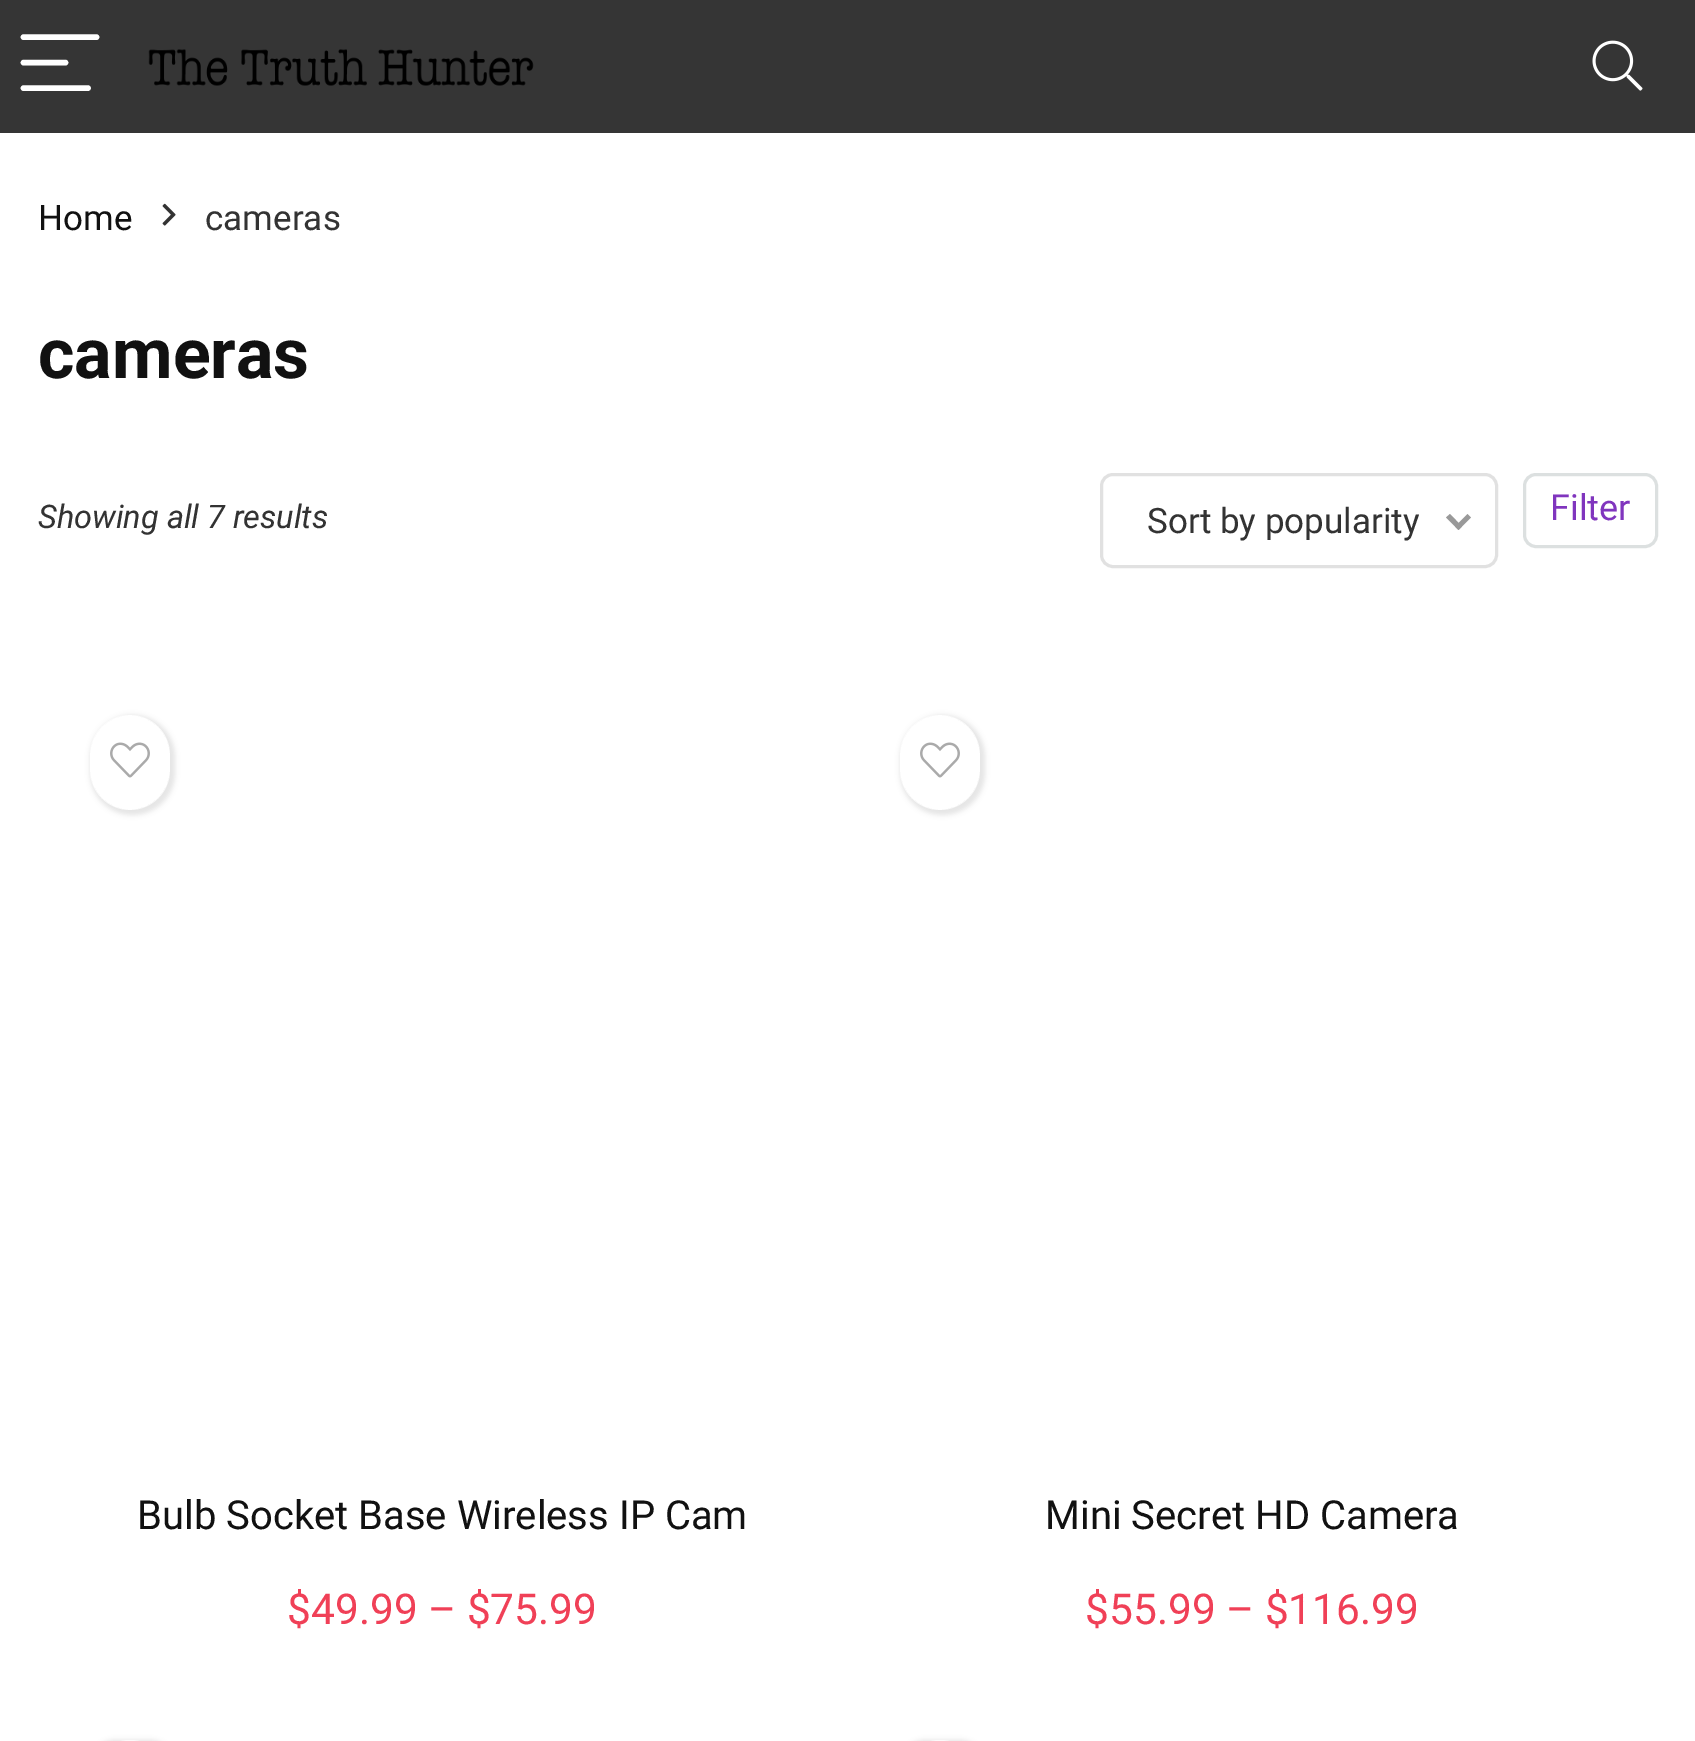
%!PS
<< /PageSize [1695 1741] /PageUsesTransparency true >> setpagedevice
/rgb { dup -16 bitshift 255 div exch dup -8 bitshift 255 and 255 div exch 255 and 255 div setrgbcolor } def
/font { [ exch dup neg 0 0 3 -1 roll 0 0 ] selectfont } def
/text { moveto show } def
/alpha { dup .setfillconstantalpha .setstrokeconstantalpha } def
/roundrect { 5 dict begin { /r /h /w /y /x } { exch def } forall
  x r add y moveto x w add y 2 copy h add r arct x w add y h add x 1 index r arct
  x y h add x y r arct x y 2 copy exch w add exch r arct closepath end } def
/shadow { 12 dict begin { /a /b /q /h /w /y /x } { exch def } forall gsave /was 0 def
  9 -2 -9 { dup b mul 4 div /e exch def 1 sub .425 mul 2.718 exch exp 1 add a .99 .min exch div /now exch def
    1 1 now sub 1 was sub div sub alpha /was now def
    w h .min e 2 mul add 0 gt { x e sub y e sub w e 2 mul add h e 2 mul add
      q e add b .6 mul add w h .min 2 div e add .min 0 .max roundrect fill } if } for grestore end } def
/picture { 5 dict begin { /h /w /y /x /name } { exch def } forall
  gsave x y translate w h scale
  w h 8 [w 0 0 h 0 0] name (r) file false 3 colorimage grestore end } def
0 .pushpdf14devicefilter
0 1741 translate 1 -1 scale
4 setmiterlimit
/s1 { /Roboto-Regular 35 font 16#111111 rgb } def
/s2 { /Roboto-Regular 35 font 16#333333 rgb } def
/s3 { /Roboto-Bold 70 font 16#111111 rgb } def
/s4 { /Roboto-Italic 32.5 font 16#333333 rgb } def
/s5 { /Roboto-Regular 36 font 16#8035BE rgb } def
/s6 { /Roboto-Regular 40 font 16#111111 rgb } def
/s7 { /Roboto-Regular 42.5 font 16#F04057 rgb } def
16#FFFFFF rgb
0 0 1695 1741 rectfill
16#353535 rgb
0 0 1695 133 rectfill
16#FFFFFF rgb
5.6 setlinewidth
1 setlinecap
23.5 37 moveto 96.5 37 lineto stroke
23.5 62.5 moveto 65.5 62.5 lineto stroke
23.5 88 moveto 88 88 lineto stroke
(pic1.raw) 148 49 386 37 picture
(pic2.raw) 1592 40 51 51 picture
s1
(Home) 38 230 text
(pic3.raw) 162 203 14 23 picture
s2
(cameras) 205 230 text
s3
(cameras) 38 378 text
s4
(Showing all 7 results) 38 528 text
16#E1E1E1 rgb
3 setlinewidth
0 setlinecap
1101.5 474.5 395 92 11.5 roundrect stroke
s2
(Sort by popularity) 1147 533 text
16#999999 rgb
1467.5 514 moveto 1471 517.5 lineto 1458.5 530 lineto 1455 526.5 lineto closepath fill
1450 514 moveto 1462 526.5 lineto 1458.5 530 lineto 1446 517.5 lineto closepath fill
16#DCE0E0 rgb
1524.5 474.5 132 72 11.5 roundrect stroke
s5
(Filter) 1550 520 text
gsave
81 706 moveto 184 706 lineto 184 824 lineto 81 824 lineto closepath 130 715 moveto 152 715 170 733 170 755 curveto 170 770 lineto 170 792 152 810 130 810 curveto 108 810 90 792 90 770 curveto 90 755 lineto 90 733 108 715 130 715 curveto closepath eoclip newpath
16#000000 rgb
90 715 85 100 42.5 2.5 0.1 shadow
grestore
0.78 alpha
16#FFFFFF rgb
90 715 80 95 40 roundrect fill
1 alpha
(pic4.raw) 110 742 40 36 picture
s6
(Bulb Socket Base Wireless IP Cam) 137 1529 text
s7
($49.99 – $75.99) 287 1624 text
gsave
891 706 moveto 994 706 lineto 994 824 lineto 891 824 lineto closepath 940 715 moveto 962 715 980 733 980 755 curveto 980 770 lineto 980 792 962 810 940 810 curveto 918 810 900 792 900 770 curveto 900 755 lineto 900 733 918 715 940 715 curveto closepath eoclip newpath
16#000000 rgb
900 715 85 100 42.5 2.5 0.1 shadow
grestore
0.78 alpha
16#FFFFFF rgb
900 715 80 95 40 roundrect fill
1 alpha
(pic4.raw) 920 742 40 36 picture
s6
(Mini Secret HD Camera) 1045 1529 text
s7
($55.99 – $116.99) 1085 1624 text
16#000000 rgb
90 1740 85 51 42.5 2.5 0.1 shadow
0.78 alpha
16#FFFFFF rgb
90 1740 80 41 40 roundrect fill
1 alpha
16#000000 rgb
900 1740 85 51 42.5 2.5 0.1 shadow
0.78 alpha
16#FFFFFF rgb
900 1740 80 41 40 roundrect fill
.poppdf14devicefilter showpage
